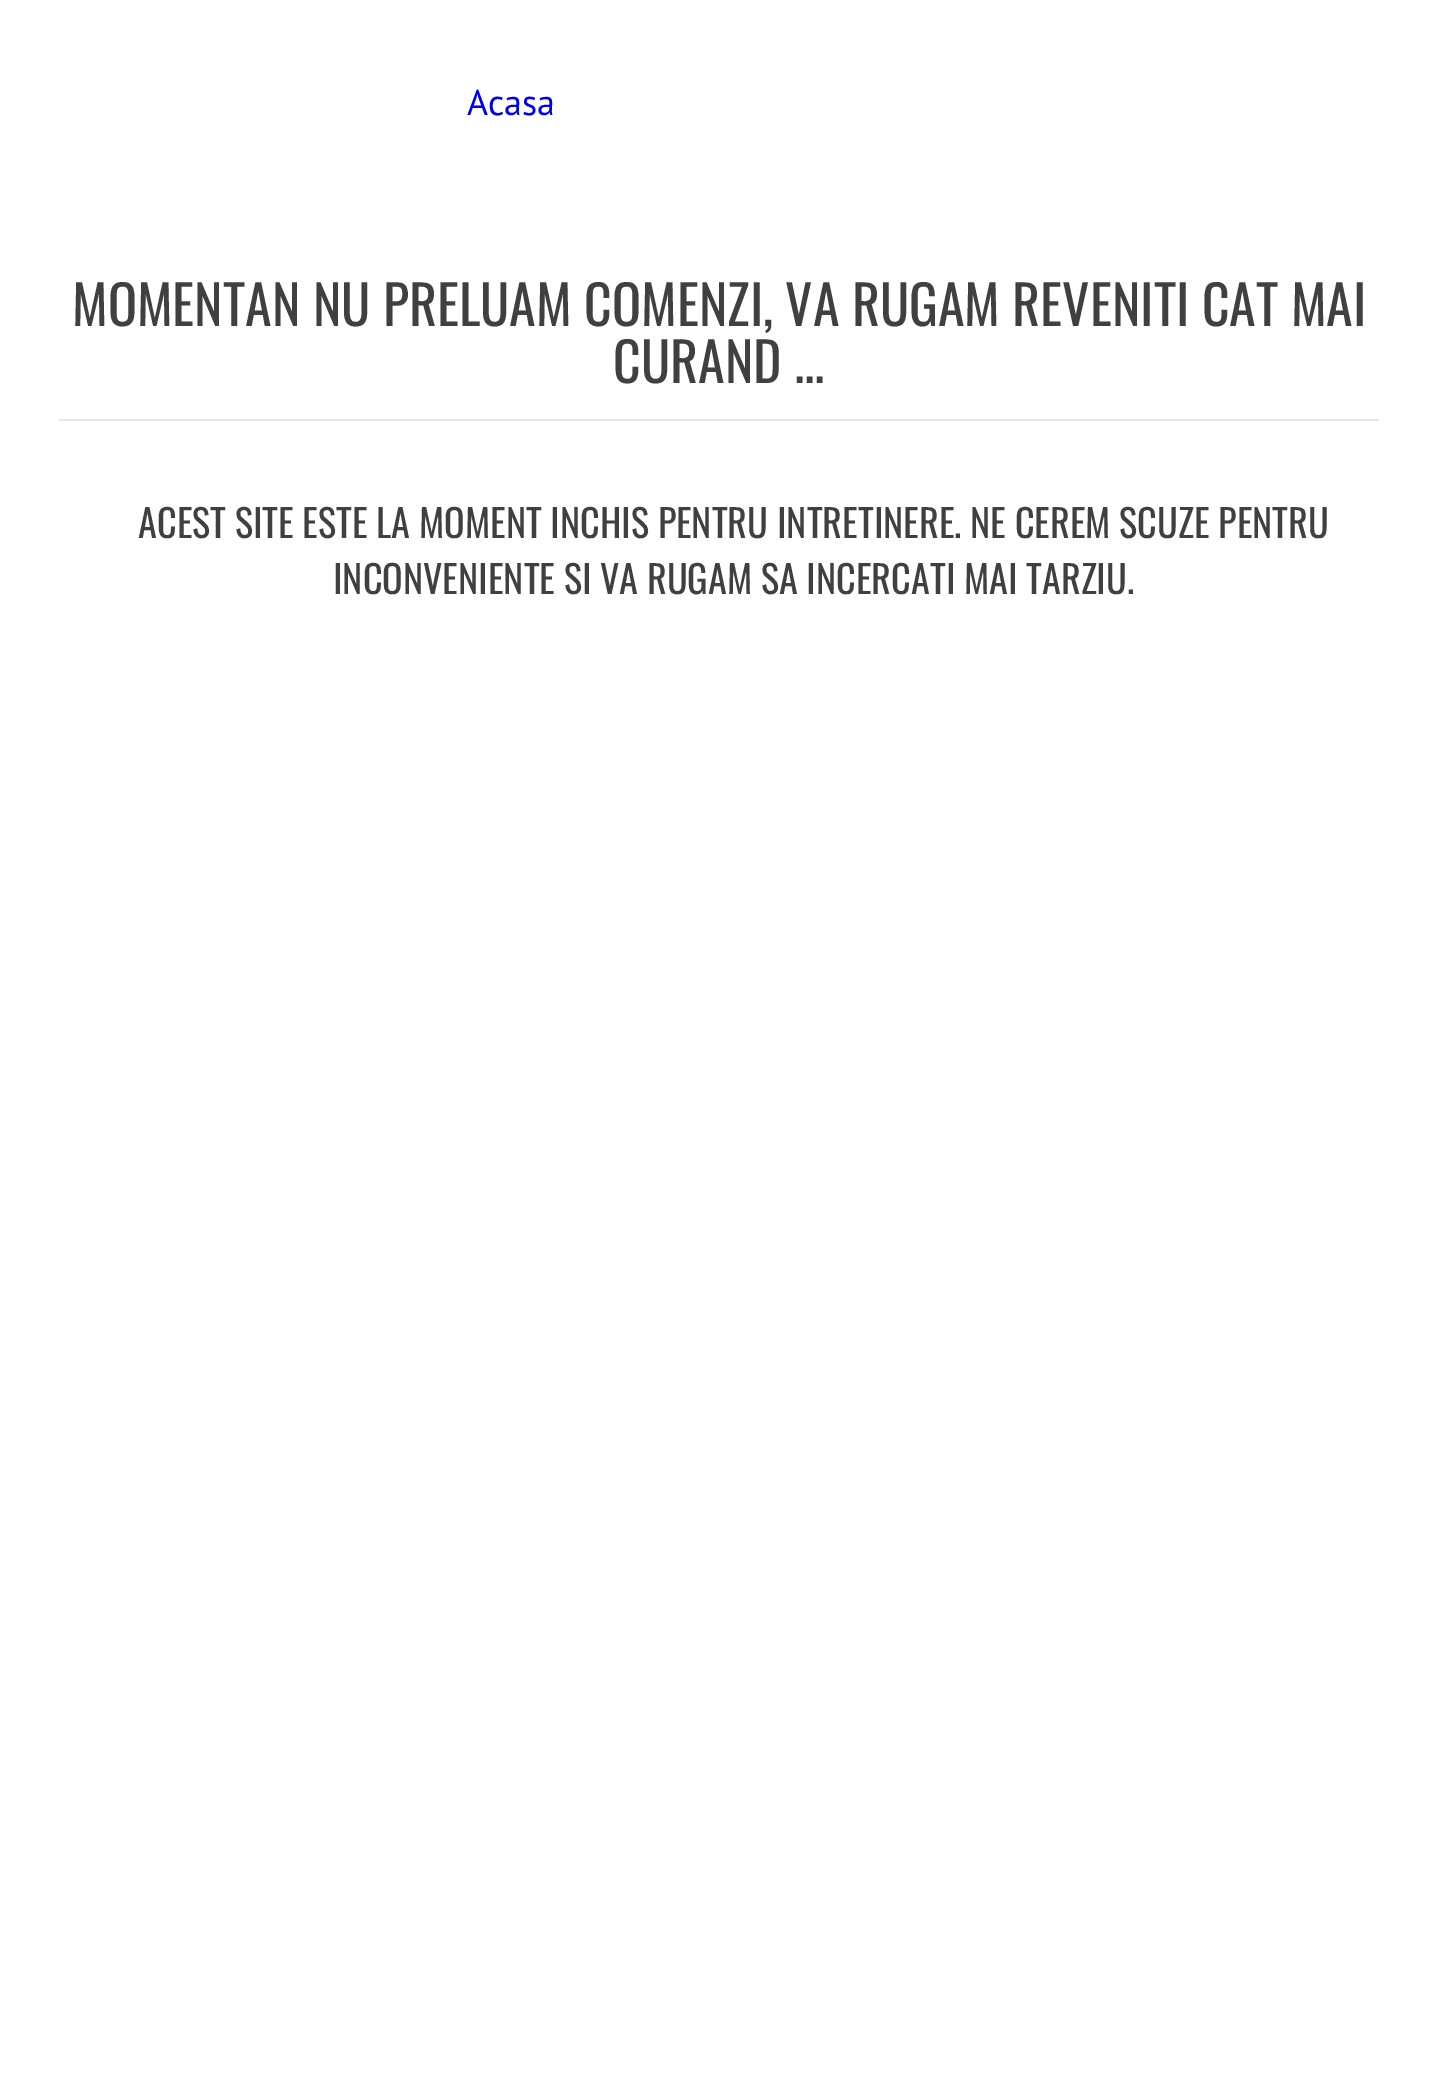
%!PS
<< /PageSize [1437 2093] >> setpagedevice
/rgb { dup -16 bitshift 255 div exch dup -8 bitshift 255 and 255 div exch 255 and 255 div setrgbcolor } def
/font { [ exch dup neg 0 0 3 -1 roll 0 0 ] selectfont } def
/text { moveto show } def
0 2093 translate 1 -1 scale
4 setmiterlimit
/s1 { /PTSans-Regular 36 font 16#0000EE rgb } def
/s2 { /Oswald-Regular 54 font 16#404040 rgb } def
/s3 { /Oswald-Regular 38.25 font 16#404040 rgb } def
16#FFFFFF rgb
0 0 1437 2093 rectfill
s1
(Acasa) 467 115 text
16#E9E8E8 rgb
59 419 1320 2 rectfill
s2
(MOMENTAN NU PRELUAM COMENZI, VA RUGAM REVENITI CAT MAI) 72 326 text
(CURAND ...) 613 383 text
s3
(ACEST SITE ESTE LA MOMENT INCHIS PENTRU INTRETINERE. NE CEREM SCUZE PENTRU) 138 538 text
(INCONVENIENTE SI VA RUGAM SA INCERCATI MAI TARZIU.) 333 594 text
showpage
